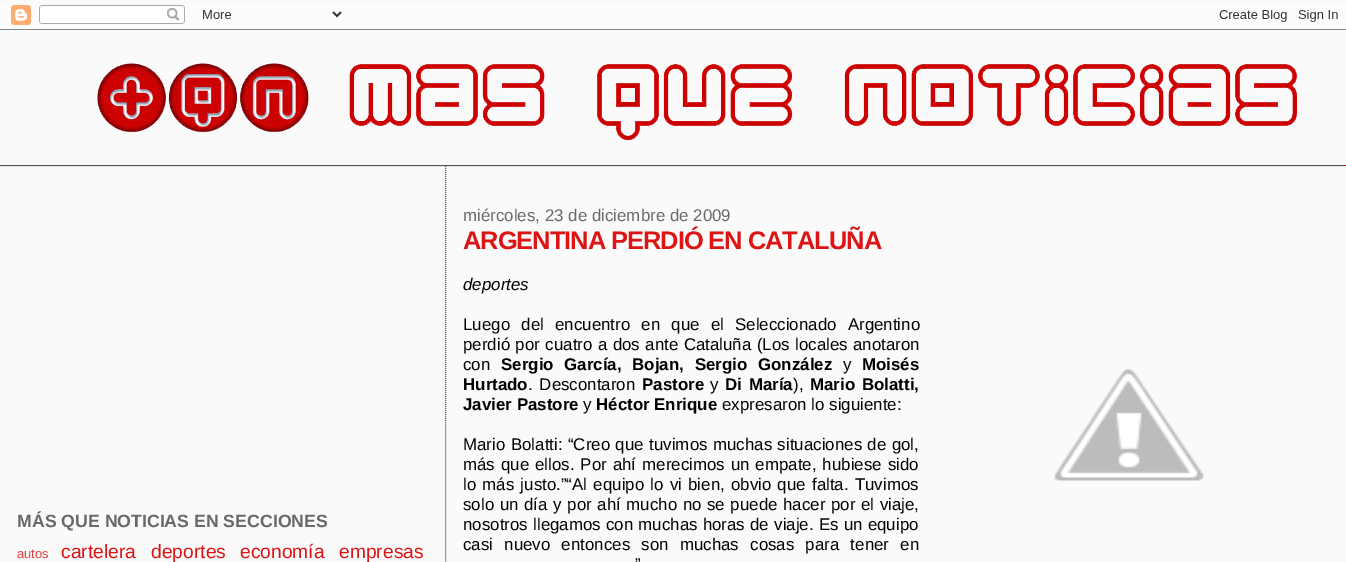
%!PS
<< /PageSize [1346 562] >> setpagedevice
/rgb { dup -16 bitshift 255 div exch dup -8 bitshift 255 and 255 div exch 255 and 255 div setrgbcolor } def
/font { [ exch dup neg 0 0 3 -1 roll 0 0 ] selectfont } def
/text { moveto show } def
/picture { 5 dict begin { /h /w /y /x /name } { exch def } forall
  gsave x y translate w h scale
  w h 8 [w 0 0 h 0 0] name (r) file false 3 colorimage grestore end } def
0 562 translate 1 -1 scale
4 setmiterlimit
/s1 { /LiberationSans-Bold 17.7 font 16#6B6868 rgb } def
/s2 { /LiberationSans-Regular 13 font 16#E24242 rgb } def
/s3 { /LiberationSans-Regular 19.25 font 16#DC1414 rgb } def
/s4 { /LiberationSans-Regular 16.9 font 16#6B6868 rgb } def
/s5 { /LiberationSans-Italic 16.9 font 16#000000 rgb } def
/s6 { /LiberationSans-Regular 16.9 font 16#000000 rgb } def
/s7 { /LiberationSans-Bold 16.9 font 16#000000 rgb } def
16#FAFAFA rgb
0 0 1346 562 rectfill
(pic1.raw) 0 5 1346 25 picture
16#CC0000 rgb
1 165 1345 1 rectfill
16#666666 rgb
[1 1] 0 setdash
0 165.5 moveto 1346 165.5 lineto stroke
(pic2.raw) 0 30 1346 135 picture
s1
(MÁS QUE NOTICIAS EN SECCIONES) 17 527 text
s2
(autos) 17 558 text
s3
(cartelera) 61 558 text
(deportes) 151 558 text
(economía) 240 558 text
(empresas) 339 558 text
16#666666 rgb
445.5 166 moveto 445.5 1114 lineto stroke
s4
(miércoles, 23 de diciembre de 2009) 463 221 text
/LiberationSans-Bold 25.4 font
16#DC1414 rgb
463 249 moveto -1 0 (ARGENTINA PERDIÓ EN CATALUÑA) ashow
s5
(deportes) 463 290 text
/LiberationSans-Regular 16.9 font
463 330 moveto 6.5 0 32 (Luego del encuentro en que el Seleccionado Argentino) widthshow
463 350 moveto 0.75 0 32 (perdió por cuatro a dos ante Cataluña \(Los locales anotaron) widthshow
(con) 463 370 text
/LiberationSans-Bold 16.9 font
501 370 moveto 6 0 32 (Sergio García, Bojan, Sergio González) widthshow
s6
(y) 843 370 text
s7
(Moisés) 862 370 text
(Hurtado) 463 390 text
/LiberationSans-Regular 16.9 font
528 390 moveto 2 0 32 (. Descontaron) widthshow
s7
(Pastore) 642 390 text
s6
(y) 710 390 text
/LiberationSans-Bold 16.9 font
725 390 moveto 2 0 32 (Di María) widthshow
s6
(\),) 793 390 text
/LiberationSans-Bold 16.9 font
810 390 moveto 2 0 32 (Mario Bolatti,) widthshow
(pic3.raw) 1054 369 150 112 picture
(Javier Pastore) 463 410 text
s6
(y) 583 410 text
s7
(Héctor Enrique) 596 410 text
s6
(expresaron lo siguiente:) 722 410 text
463 450 moveto 0.75 0 32 (Mario Bolatti: “Creo que tuvimos muchas situaciones de gol,) widthshow
463 470 moveto 1.25 0 32 (más que ellos. Por ahí merecimos un empate, hubiese sido) widthshow
463 490 moveto 1.5 0 32 (lo más justo.”“Al equipo lo vi bien, obvio que falta. Tuvimos) widthshow
463 510 moveto 0.9 0 32 (solo un día y por ahí mucho no se puede hacer por el viaje,) widthshow
463 530 moveto 0.5 0 32 (nosotros llegamos con muchas horas de viaje. Es un equipo) widthshow
463 550 moveto 6.5 0 32 (casi nuevo entonces son muchas cosas para tener en) widthshow
(”) 635 570 text
showpage
